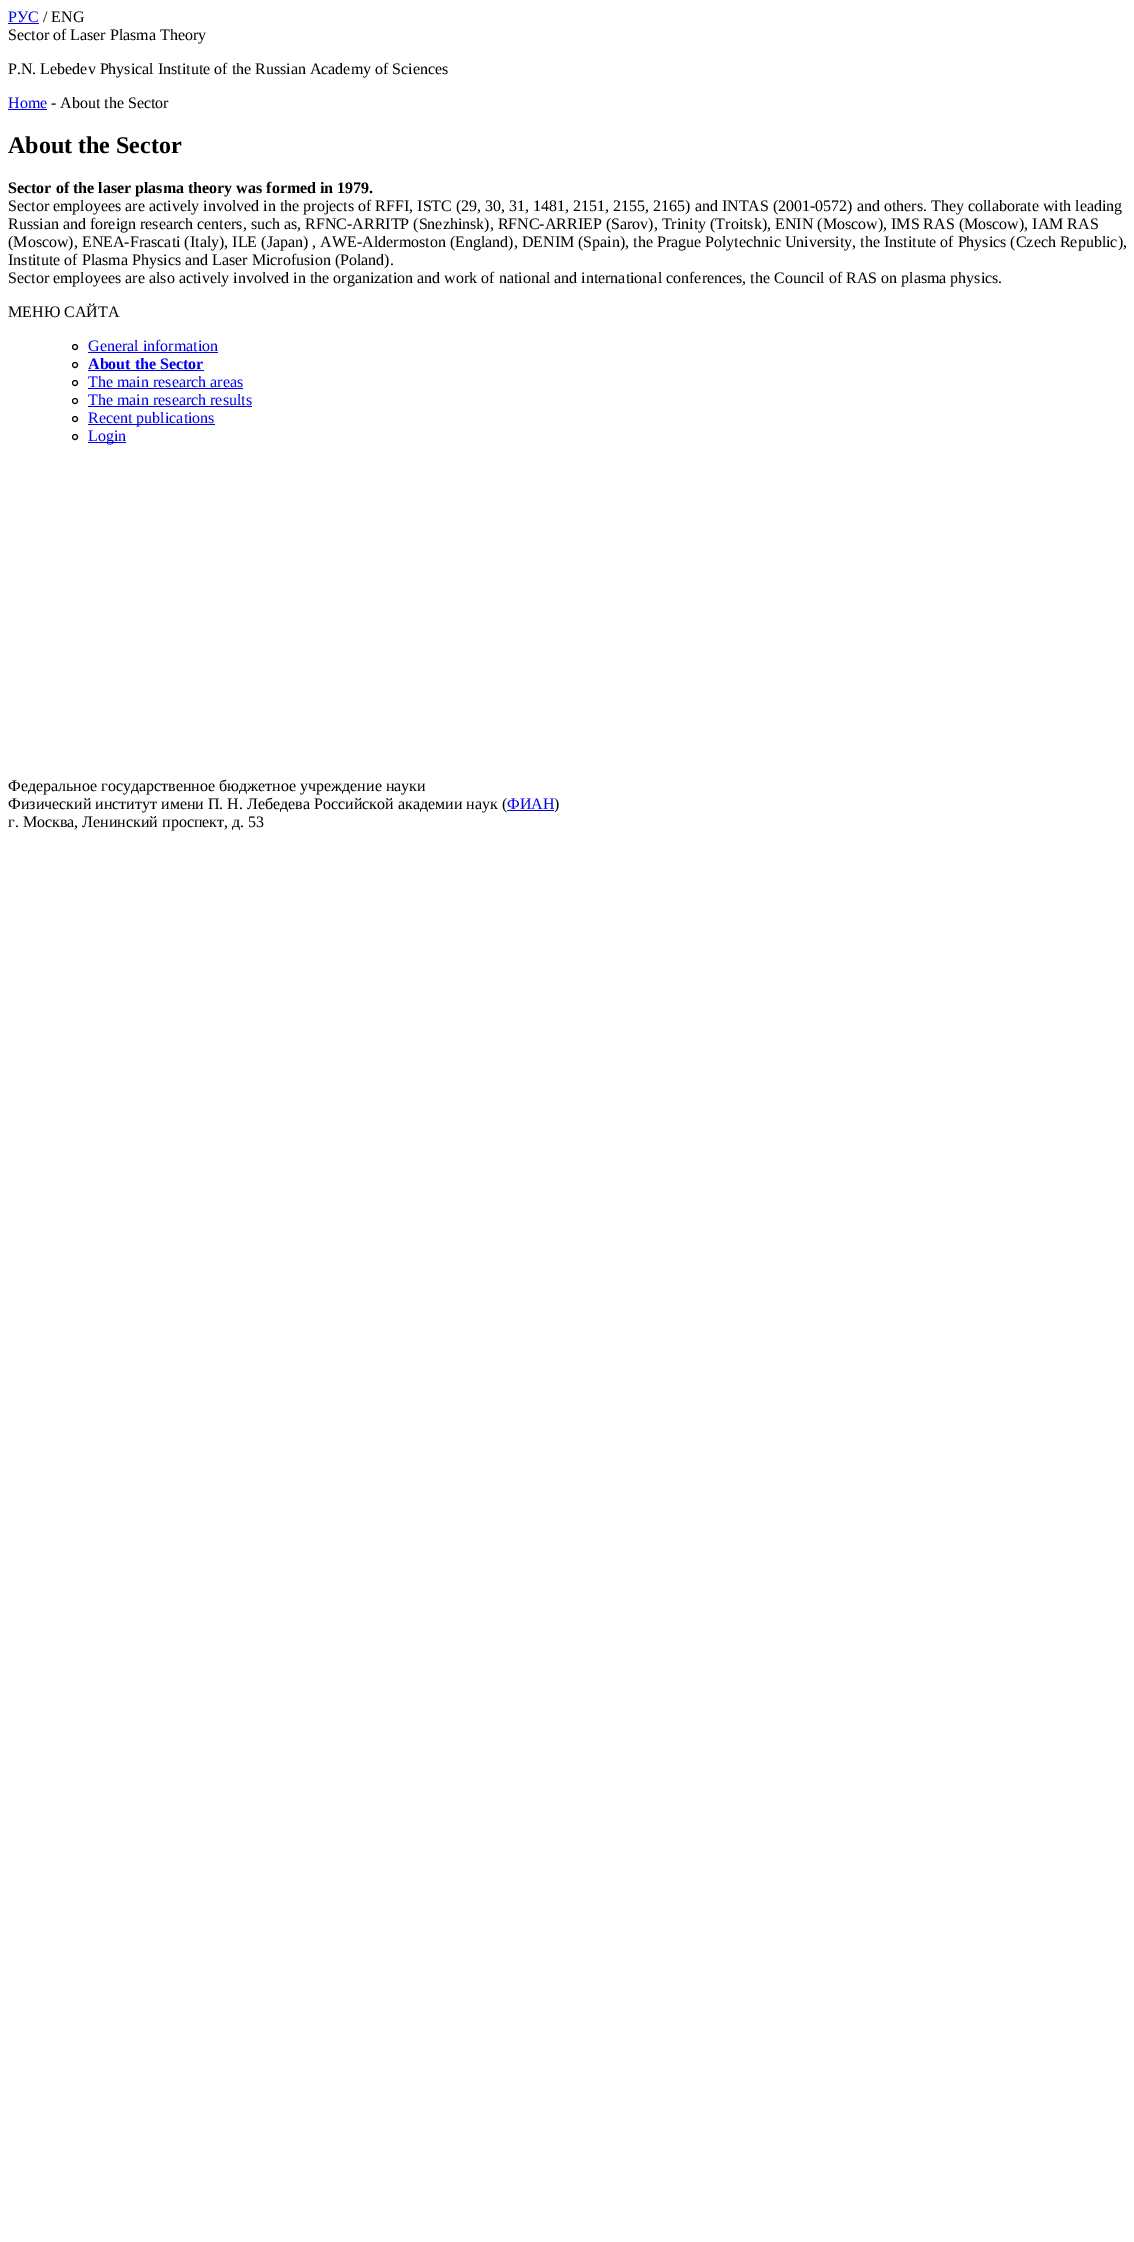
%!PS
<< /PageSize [1134 2242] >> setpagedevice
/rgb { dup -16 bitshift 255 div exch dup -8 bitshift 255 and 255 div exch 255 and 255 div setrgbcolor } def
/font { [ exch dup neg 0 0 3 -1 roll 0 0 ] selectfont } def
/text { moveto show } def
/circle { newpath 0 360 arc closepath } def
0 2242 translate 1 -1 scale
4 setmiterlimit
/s1 { /LiberationSerif-Regular 16 font 16#0000EE rgb } def
/s2 { /LiberationSerif-Regular 16 font 16#000000 rgb } def
/s3 { /LiberationSerif-Bold 24 font 16#000000 rgb } def
/s4 { /LiberationSerif-Bold 16 font 16#000000 rgb } def
/s5 { /LiberationSerif-Bold 16 font 16#0000EE rgb } def
16#FFFFFF rgb
0 0 1134 2242 rectfill
s1
(РУС) 8 22 text
8 23 31 1 rectfill
s2
(/ ENG) 43 22 text
(Sector of Laser Plasma Theory) 8 40 text
(P.N. Lebedev Physical Institute of the Russian Academy of Sciences) 8 74 text
s1
(Home) 8 108 text
8 109 39 1 rectfill
s2
(- About the Sector) 51 108 text
s3
(About the Sector) 8 153 text
s4
(Sector of the laser plasma theory was formed in 1979.) 8 193 text
s2
(Sector employees are actively involved in the projects of RFFI, ISTC \(29, 30, 31, 1481, 2151, 2155, 2165\) and INTAS \(2001-0572\) and others. They collaborate with leading) 8 211 text
(Russian and foreign research centers, such as, RFNC-ARRITP \(Snezhinsk\), RFNC-ARRIEP \(Sarov\), Trinity \(Troitsk\), ENIN \(Moscow\), IMS RAS \(Moscow\), IАM RAS) 8 229 text
(\(Moscow\), ENEA-Frascati \(Italy\), ILE \(Japan\) , AWE-Aldermoston \(England\), DENIM \(Spain\), the Prague Polytechnic University, the Institute of Physics \(Czech Republic\),) 8 247 text
(Institute of Plasma Physics and Laser Microfusion \(Poland\).) 8 265 text
(Sector employees are also actively involved in the organization and work of national and international conferences, the Council of RAS on plasma physics.) 8 283 text
(МЕНЮ САЙТА) 8 317 text
75 347 2.5 circle stroke
s1
(General information) 88 351 text
88 352 130 1 rectfill
16#000000 rgb
75 365 2.5 circle stroke
s5
(About the Sector) 88 369 text
88 370 116 1 rectfill
16#000000 rgb
75 383 2.5 circle stroke
s1
(The main research areas) 88 387 text
88 388 155 1 rectfill
16#000000 rgb
75 401 2.5 circle stroke
s1
(The main research results) 88 405 text
88 406 164 1 rectfill
16#000000 rgb
75 419 2.5 circle stroke
16#0000EE rgb
88 424 127 1 rectfill
(Recent publications) 88 423 text
16#000000 rgb
75 437 2.5 circle stroke
16#0000EE rgb
88 442 38 1 rectfill
(Login) 88 441 text
s2
(Федеральное государственное бюджетное учреждение науки) 8 791 text
(Физический институт имени П. Н. Лебедева Российской академии наук \() 8 809 text
s1
(ФИАН) 507 809 text
507 810 47 1 rectfill
s2
(\)) 554 809 text
(г. Москва, Ленинский проспект, д. 53) 8 827 text
showpage
